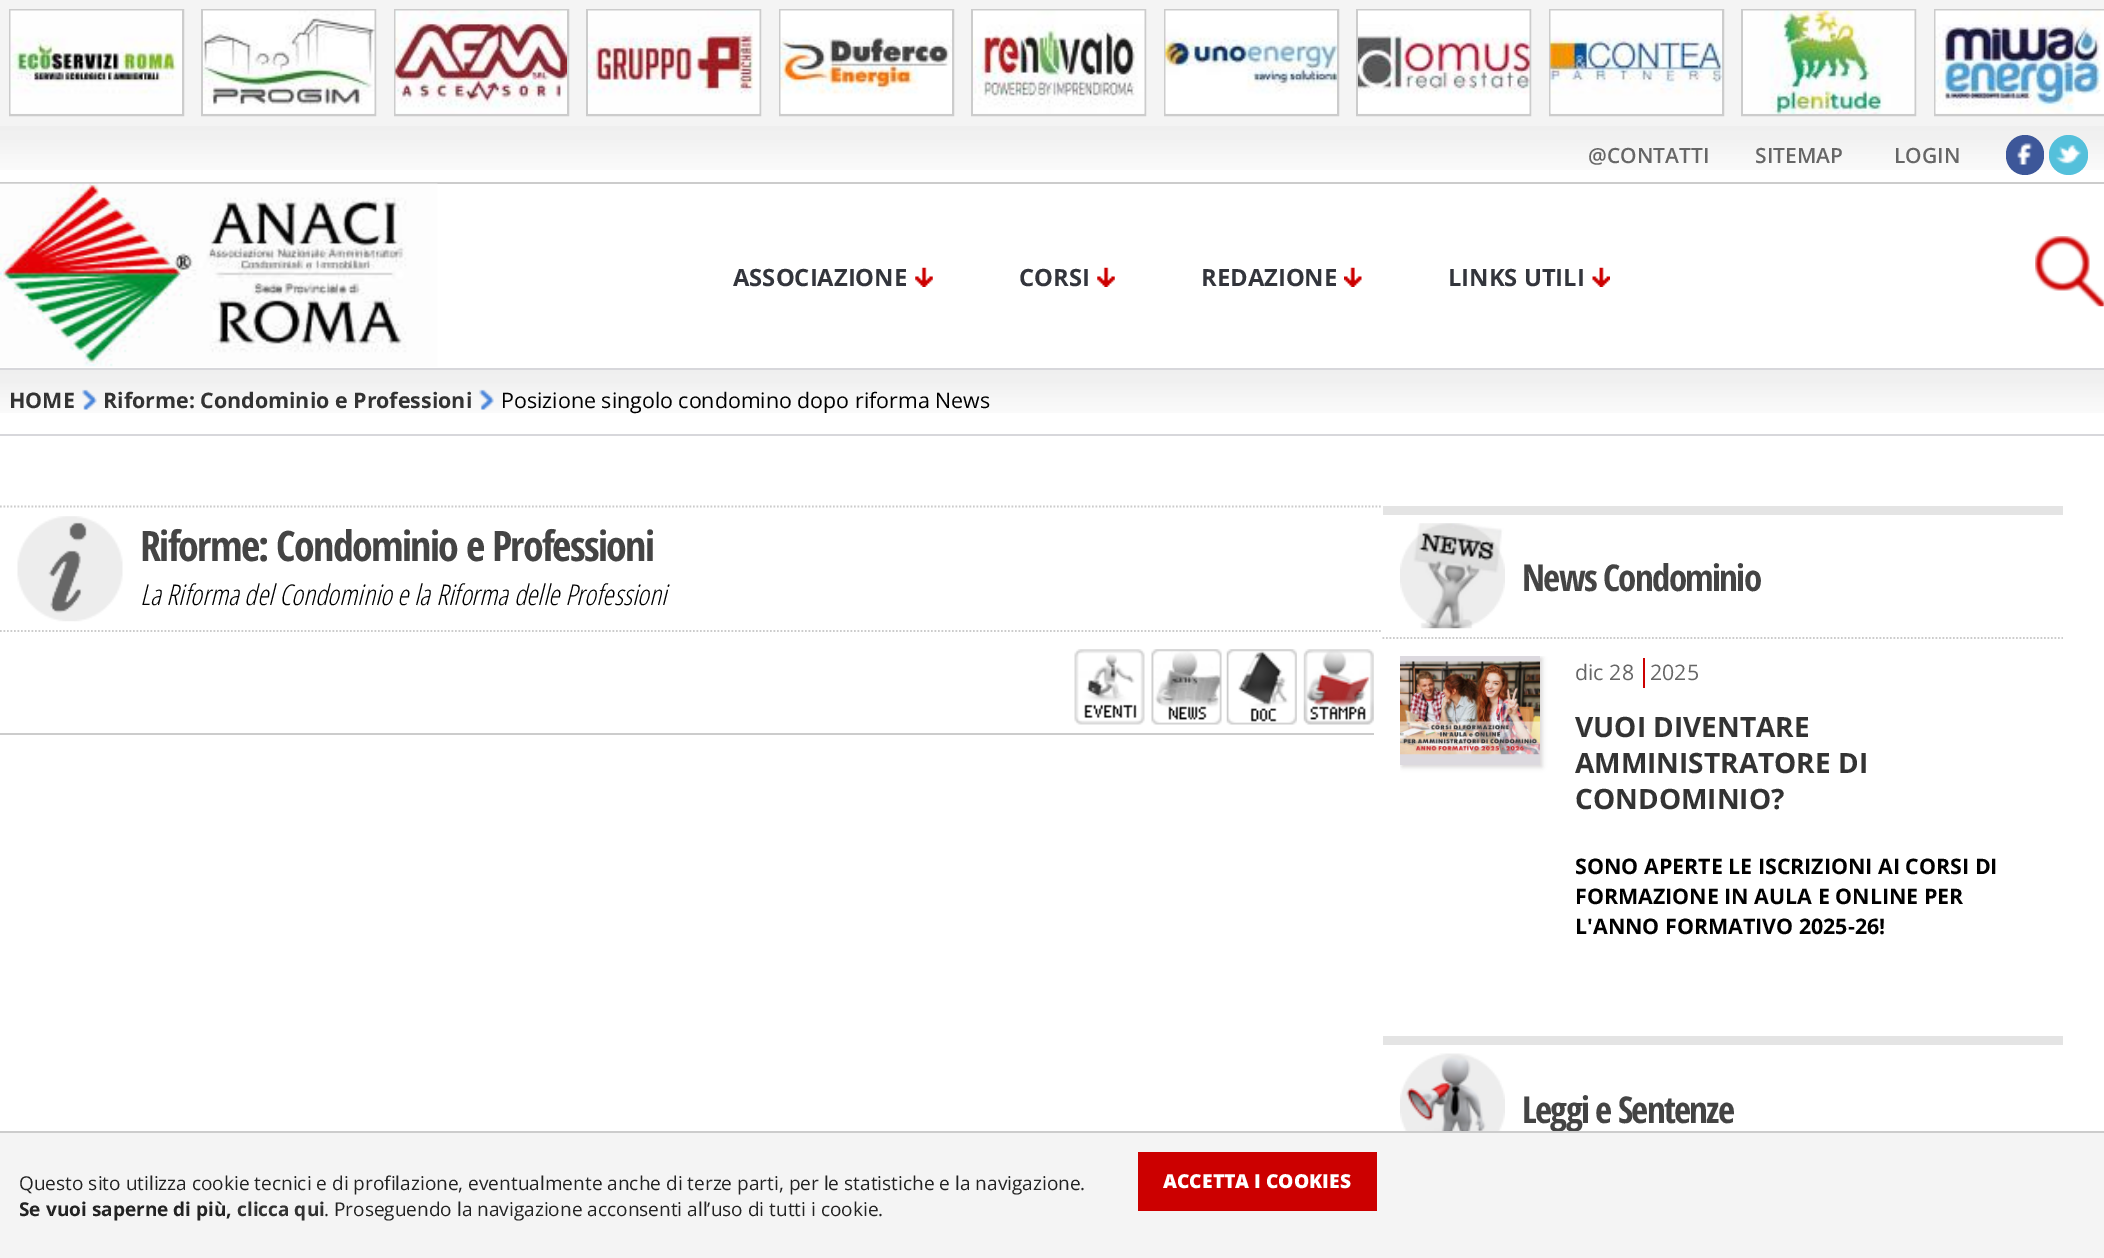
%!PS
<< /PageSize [2104 1258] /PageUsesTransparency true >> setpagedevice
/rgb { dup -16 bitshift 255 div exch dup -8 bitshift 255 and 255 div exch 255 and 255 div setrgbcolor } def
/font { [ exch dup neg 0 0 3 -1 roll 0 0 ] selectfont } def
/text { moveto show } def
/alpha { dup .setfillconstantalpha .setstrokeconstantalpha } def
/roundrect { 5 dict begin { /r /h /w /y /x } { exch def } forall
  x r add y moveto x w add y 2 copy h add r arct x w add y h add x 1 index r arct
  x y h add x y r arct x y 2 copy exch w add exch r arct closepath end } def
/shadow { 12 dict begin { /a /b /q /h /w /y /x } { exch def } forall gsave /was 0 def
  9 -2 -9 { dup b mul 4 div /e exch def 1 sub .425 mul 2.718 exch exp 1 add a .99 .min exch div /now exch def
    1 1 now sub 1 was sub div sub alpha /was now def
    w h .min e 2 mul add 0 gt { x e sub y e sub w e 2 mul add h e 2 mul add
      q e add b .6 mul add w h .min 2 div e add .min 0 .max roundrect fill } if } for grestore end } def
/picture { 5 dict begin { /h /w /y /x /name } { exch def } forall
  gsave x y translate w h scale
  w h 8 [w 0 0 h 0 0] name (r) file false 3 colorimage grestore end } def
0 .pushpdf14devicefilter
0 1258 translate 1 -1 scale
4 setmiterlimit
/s1 { /OpenSans-SemiBold 21 font 16#666666 rgb } def
/s2 { /OpenSans-Bold 23.75 font 16#33353C rgb } def
/s3 { /OpenSans-Bold 21.4 font 16#333333 rgb } def
/s4 { /OpenSans-Regular 21.4 font 16#000000 rgb } def
/s5 { /OpenSansCondensed-LightItalic 28.6 font 16#000000 rgb } def
/s6 { /OpenSans-Regular 21.4 font 16#666666 rgb } def
/s7 { /OpenSans-Bold 28 font 16#333333 rgb } def
/s8 { /OpenSans-Bold 21.4 font 16#000000 rgb } def
/s9 { /OpenSans-Regular 19.05 font 16#232323 rgb } def
/s10 { /OpenSans-Bold 19.05 font 16#232323 rgb } def
/s11 { /OpenSans-Bold 19.05 font 16#333333 rgb } def
/s12 { /OpenSans-ExtraBold 19.25 font 16#FFFFFF rgb } def
16#FFFFFF rgb
0 0 2104 1258 rectfill
16#F4F4F4 rgb
0 0 2104 126 rectfill
16#CCCCCC rgb
2 setlinewidth
10 10 173 105 rectstroke
(pic1.raw) 10 10 172 104 picture
202 10 173 105 rectstroke
(pic2.raw) 203 10 172 104 picture
395 10 173 105 rectstroke
(pic3.raw) 395 10 172 104 picture
587 10 173 105 rectstroke
(pic4.raw) 588 10 172 104 picture
780 10 173 105 rectstroke
(pic5.raw) 780 10 172 104 picture
972 10 173 105 rectstroke
(pic6.raw) 973 10 172 104 picture
1165 10 173 105 rectstroke
(pic7.raw) 1165 10 172 104 picture
1357 10 173 105 rectstroke
(pic8.raw) 1358 10 172 104 picture
1550 10 173 105 rectstroke
(pic9.raw) 1550 10 172 104 picture
1742 10 173 105 rectstroke
(pic10.raw) 1743 10 172 104 picture
1935 10 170 105 rectstroke
(pic11.raw) 1935 10 169 104 picture
(pic12.raw) 0 126 2104 44 picture
0 182 2104 2 rectfill
16#3D5799 rgb
2006 135 38 40 19 roundrect fill
16#54C0DB rgb
2049 135 39 40 19.5 roundrect fill
s1
(@CONTATTI) 1588 163 text
(SITEMAP) 1755 163 text
(LOGIN) 1894 163 text
(pic13.raw) 2017 143 16 22 picture
(pic14.raw) 2056 144 26 20 picture
(pic15.raw) 0 183 438 184 picture
s2
(ASSOCIAZIONE) 733 286 text
(pic16.raw) 915 267 18 20 picture
(CORSI) 1019 286 text
(pic16.raw) 1097 267 18 20 picture
(REDAZIONE) 1201 286 text
(pic17.raw) 1344 267 18 20 picture
(LINKS UTILI) 1448 286 text
(pic18.raw) 1592 267 18 20 picture
(pic19.raw) 2035 236 69 71 picture
(pic20.raw) 0 370 2104 43 picture
16#D7D7DB rgb
0 368 2104 2 rectfill
0 434 2104 2 rectfill
s3
(HOME) 9 408 text
(pic21.raw) 82 389 15 21 picture
(Riforme: Condominio e Professioni) 103 408 text
(pic22.raw) 479 389 15 21 picture
s4
(Posizione singolo condomino dopo riforma News) 501 408 text
16#CCCCCC rgb
1.8 setlinewidth
[1.75 1.75] 0 setdash
0 506.5 moveto 1382.5 506.5 lineto stroke
0 631 moveto 1382.5 631 lineto stroke
(pic23.raw) 17 516 106 106 picture
/OpenSansCondensed-Bold 42 font
16#444444 rgb
140 561 moveto -1.75 0 (Riforme: Condominio e Professioni) ashow
s5
(La Riforma del Condominio e la Riforma delle Professioni) 140 605 text
16#CCCCCC rgb
0 733 1374 2 rectfill
(pic24.raw) 1074 649 71 76 picture
(pic25.raw) 1151 649 71 76 picture
(pic26.raw) 1226 649 71 76 picture
(pic27.raw) 1303 649 71 76 picture
16#E4E4E4 rgb
1383 506 680 9 rectfill
16#CCCCCC rgb
1382.5 638 moveto 2063 638 lineto stroke
(pic28.raw) 1400 523 105 106 picture
/OpenSansCondensed-Bold 37 font
16#444444 rgb
1522 591 moveto -1.75 0 (News Condominio) ashow
gsave
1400 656 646 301 rectclip
16#D7D4D4 rgb
1402 658 140 109 0 2.5 1 shadow
grestore
16#DCD9DF rgb
1400 656 140 109 rectfill
(pic29.raw) 1400 661 140 94 picture
s6
(dic 28) 1575 680 text
16#CC0000 rgb
1643 658 2 30 rectfill
s6
(2025) 1650 680 text
s7
(VUOI DIVENTARE) 1575 737 text
(AMMINISTRATORE DI) 1575 773 text
(CONDOMINIO?) 1575 809 text
s8
(SONO APERTE LE ISCRIZIONI AI CORSI DI) 1575 874 text
(FORMAZIONE IN AULA E ONLINE PER) 1575 904 text
(L'ANNO FORMATIVO 2025-26!) 1575 934 text
16#E4E4E4 rgb
1383 1036 680 9 rectfill
(pic30.raw) 1400 1053 105 78 picture
/OpenSansCondensed-Bold 37 font
16#444444 rgb
1522 1123 moveto -1.75 0 (Leggi e Sentenze) ashow
16#F4F4F4 rgb
0 1133 2104 125 rectfill
16#CCCCCC rgb
0 1131 2104 2 rectfill
s9
(Questo sito utilizza cookie tecnici e di profilazione, eventualmente anche di terze parti, per le statistiche e la navigazione.) 19 1190 text
s10
(Se vuoi saperne di più,) 19 1216 text
s11
(clicca qui) 237 1216 text
s9
(. Proseguendo la navigazione acconsenti all’uso di tutti i cookie.) 324 1216 text
16#CC0000 rgb
1138 1152 239 59 rectfill
s12
(ACCETTA I COOKIES) 1163 1188 text
.poppdf14devicefilter showpage
